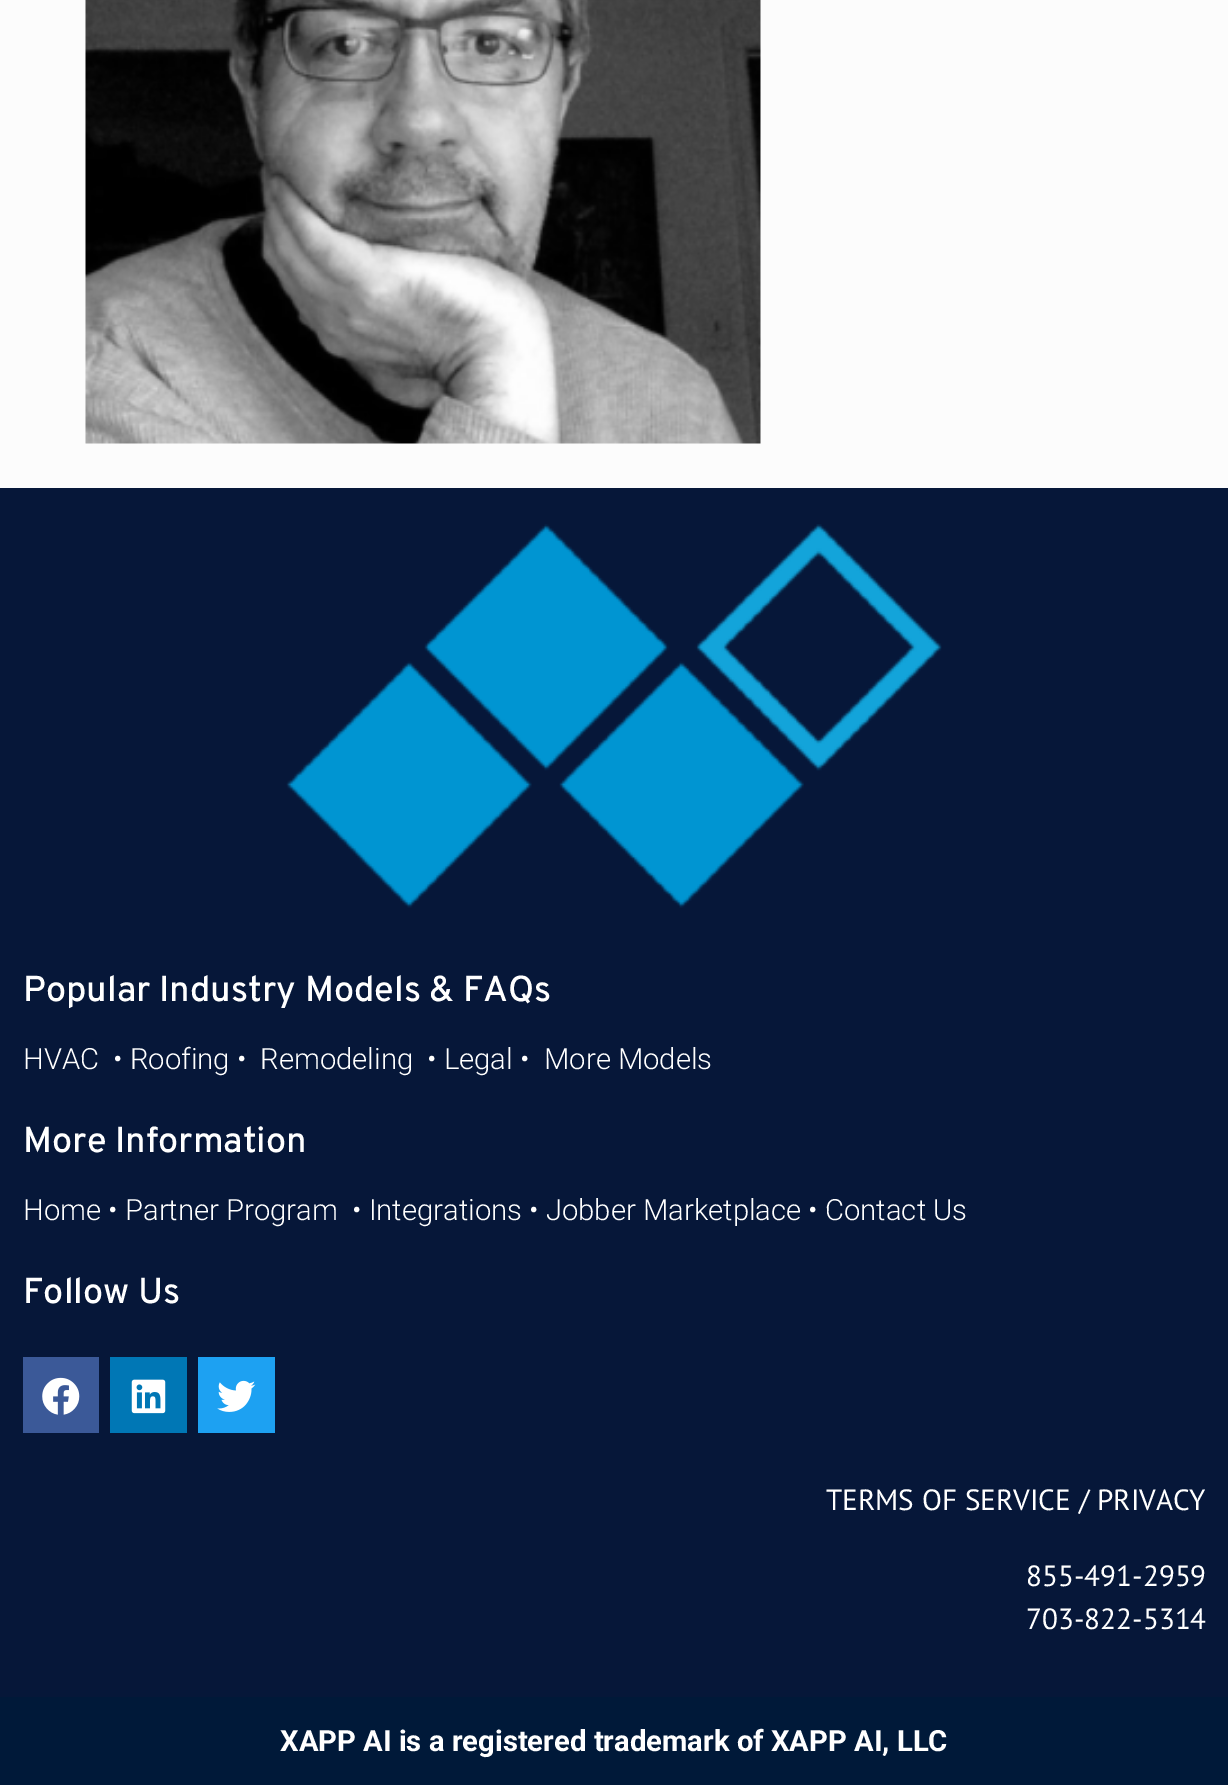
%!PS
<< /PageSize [1228 1785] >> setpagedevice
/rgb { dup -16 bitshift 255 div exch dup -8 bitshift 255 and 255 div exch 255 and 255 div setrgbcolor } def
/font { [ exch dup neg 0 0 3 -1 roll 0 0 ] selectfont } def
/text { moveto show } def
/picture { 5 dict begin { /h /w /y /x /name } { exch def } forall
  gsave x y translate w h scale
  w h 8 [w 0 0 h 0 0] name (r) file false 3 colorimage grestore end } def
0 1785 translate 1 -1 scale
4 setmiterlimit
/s1 { /Overpass-Medium 36 font 16#FFFFFF rgb } def
/s2 { /Roboto-Light 29.25 font 16#FFFFFF rgb } def
/s3 { /PTSans-Regular 29.25 font 16#FFFFFF rgb } def
/s4 { /Roboto-Bold 29.25 font 16#FFFFFF rgb } def
16#FCFCFC rgb
0 0 1228 1785 rectfill
(pic1.raw) 85 0 676 444 picture
16#061739 rgb
0 488 1228 1209 rectfill
(pic2.raw) 286 524 656 384 picture
s1
(Popular Industry Models & FAQs) 23 1001 text
s2
(HVAC) 23 1069 text
(• Roofing •) 113 1069 text
(Remodeling) 260 1069 text
(• Legal •) 427 1069 text
(More Models) 544 1069 text
s1
(More Information) 23 1152 text
s2
(Home • Partner Program) 23 1220 text
(• Integrations • Jobber Marketplace • Contact Us) 352 1220 text
s1
(Follow Us) 23 1303 text
16#3B5998 rgb
23 1357 76 76 rectfill
(pic3.raw) 42 1377 38 38 picture
16#0077B5 rgb
110 1357 77 76 rectfill
(pic4.raw) 131 1379 35 35 picture
16#1DA1F2 rgb
198 1357 77 76 rectfill
(pic5.raw) 217 1380 39 32 picture
s3
(TERMS OF SERVICE / PRIVACY) 826 1510 text
(855-491-2959) 1026 1586 text
(703-822-5314) 1026 1629 text
16#001939 rgb
0 1697 1228 88 rectfill
s4
(XAPP AI is a registered trademark of XAPP AI, LLC) 280 1751 text
showpage
